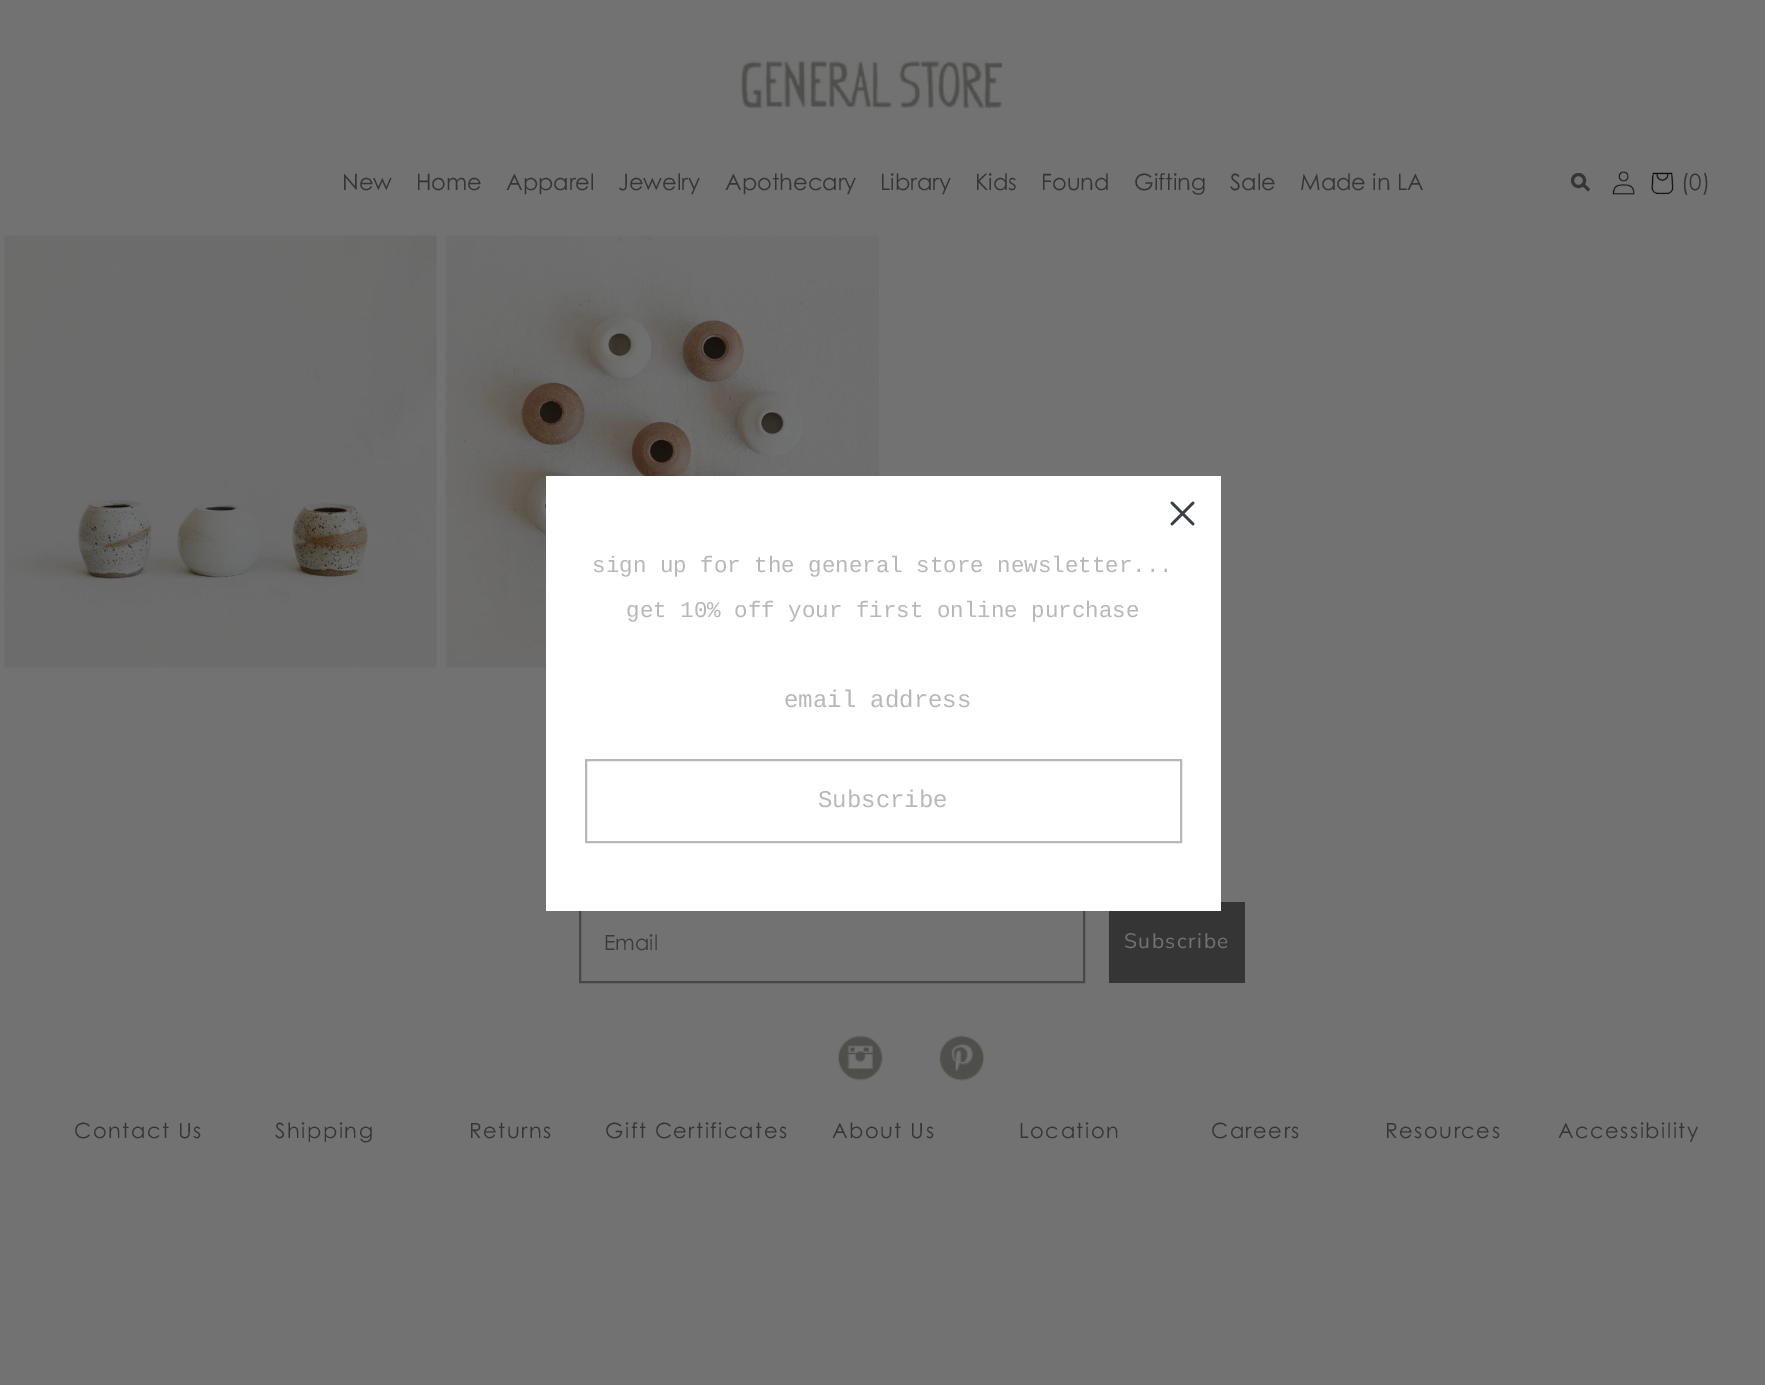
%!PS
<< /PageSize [1765 1385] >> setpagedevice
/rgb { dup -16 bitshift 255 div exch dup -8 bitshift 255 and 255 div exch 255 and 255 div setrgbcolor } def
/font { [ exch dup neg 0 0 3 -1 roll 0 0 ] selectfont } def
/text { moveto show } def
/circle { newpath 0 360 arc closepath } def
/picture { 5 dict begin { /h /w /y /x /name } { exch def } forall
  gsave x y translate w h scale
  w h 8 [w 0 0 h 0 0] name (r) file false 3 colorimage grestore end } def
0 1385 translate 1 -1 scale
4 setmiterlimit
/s1 { /CenturyGothic-Regular 22.5 font 16#353535 rgb } def
/s2 { /LiberationMono-Regular 22.5 font 16#B8B8B8 rgb } def
/s3 { /LiberationMono-Regular 24 font 16#B8B8B8 rgb } def
/s4 { /CenturyGothic-Regular 21 font 16#3B3B3B rgb } def
16#727272 rgb
0 0 1765 1385 rectfill
(pic1.raw) 741 60 261 48 picture
s1
(New) 342 190 text
(Home) 416 190 text
(Apparel) 506 190 text
(Jewelry) 618 190 text
(Apothecary) 725 190 text
(Library) 880 190 text
(Kids) 975 190 text
(Found) 1041 190 text
(Gifting) 1134 190 text
(Sale) 1230 190 text
(Made in LA) 1300 190 text
3 setlinewidth
1578.5 180.5 6 circle stroke
1583.5 183 moveto 1590 189 lineto 1588 191.5 lineto 1581.5 185 lineto closepath fill
(pic2.raw) 1612 171 23 24 picture
(pic3.raw) 1651 172 23 23 picture
(\(0\)) 1681 190 text
(pic4.raw) 4 235 433 433 picture
(pic5.raw) 445 235 434 433 picture
16#474848 rgb
2 setlinewidth
580 903 504 79 rectstroke
16#353535 rgb
1109 902 136 81 rectfill
16#FFFFFF rgb
546 476 675 435 rectfill
16#373F47 rgb
2.6 setlinewidth
1 setlinecap
1 setlinejoin
1172 503 moveto 1193 524 lineto 1172 524 moveto 1193 503 lineto closepath stroke
s2
(sign up for the general store newsletter...) 592 572 text
(get 10% off your first online purchase) 626 617 text
s3
(email address) 784 707 text
2 setlinewidth
0 setlinecap
0 setlinejoin
586 760 595 82 rectstroke
(Subscribe) 818 807 text
s4
(Email) 604 950 text
/NunitoSans-Regular 21 font
16#727272 rgb
1124 948 moveto 1.5 0 (Subscribe) ashow
(pic6.raw) 838 1035 45 46 picture
(pic7.raw) 939 1035 45 46 picture
/CenturyGothic-Regular 21 font
16#353535 rgb
74 1138 moveto 1.5 0 (Contact Us) ashow
275 1138 moveto 1.5 0 (Shipping) ashow
469 1138 moveto 1.5 0 (Returns) ashow
605 1138 moveto 1.5 0 (Gift Certificates) ashow
832 1138 moveto 1.5 0 (About Us) ashow
1019 1138 moveto 1.5 0 (Location) ashow
1211 1138 moveto 1.5 0 (Careers) ashow
1385 1138 moveto 1.5 0 (Resources) ashow
1558 1138 moveto 1.5 0 (Accessibility) ashow
showpage
